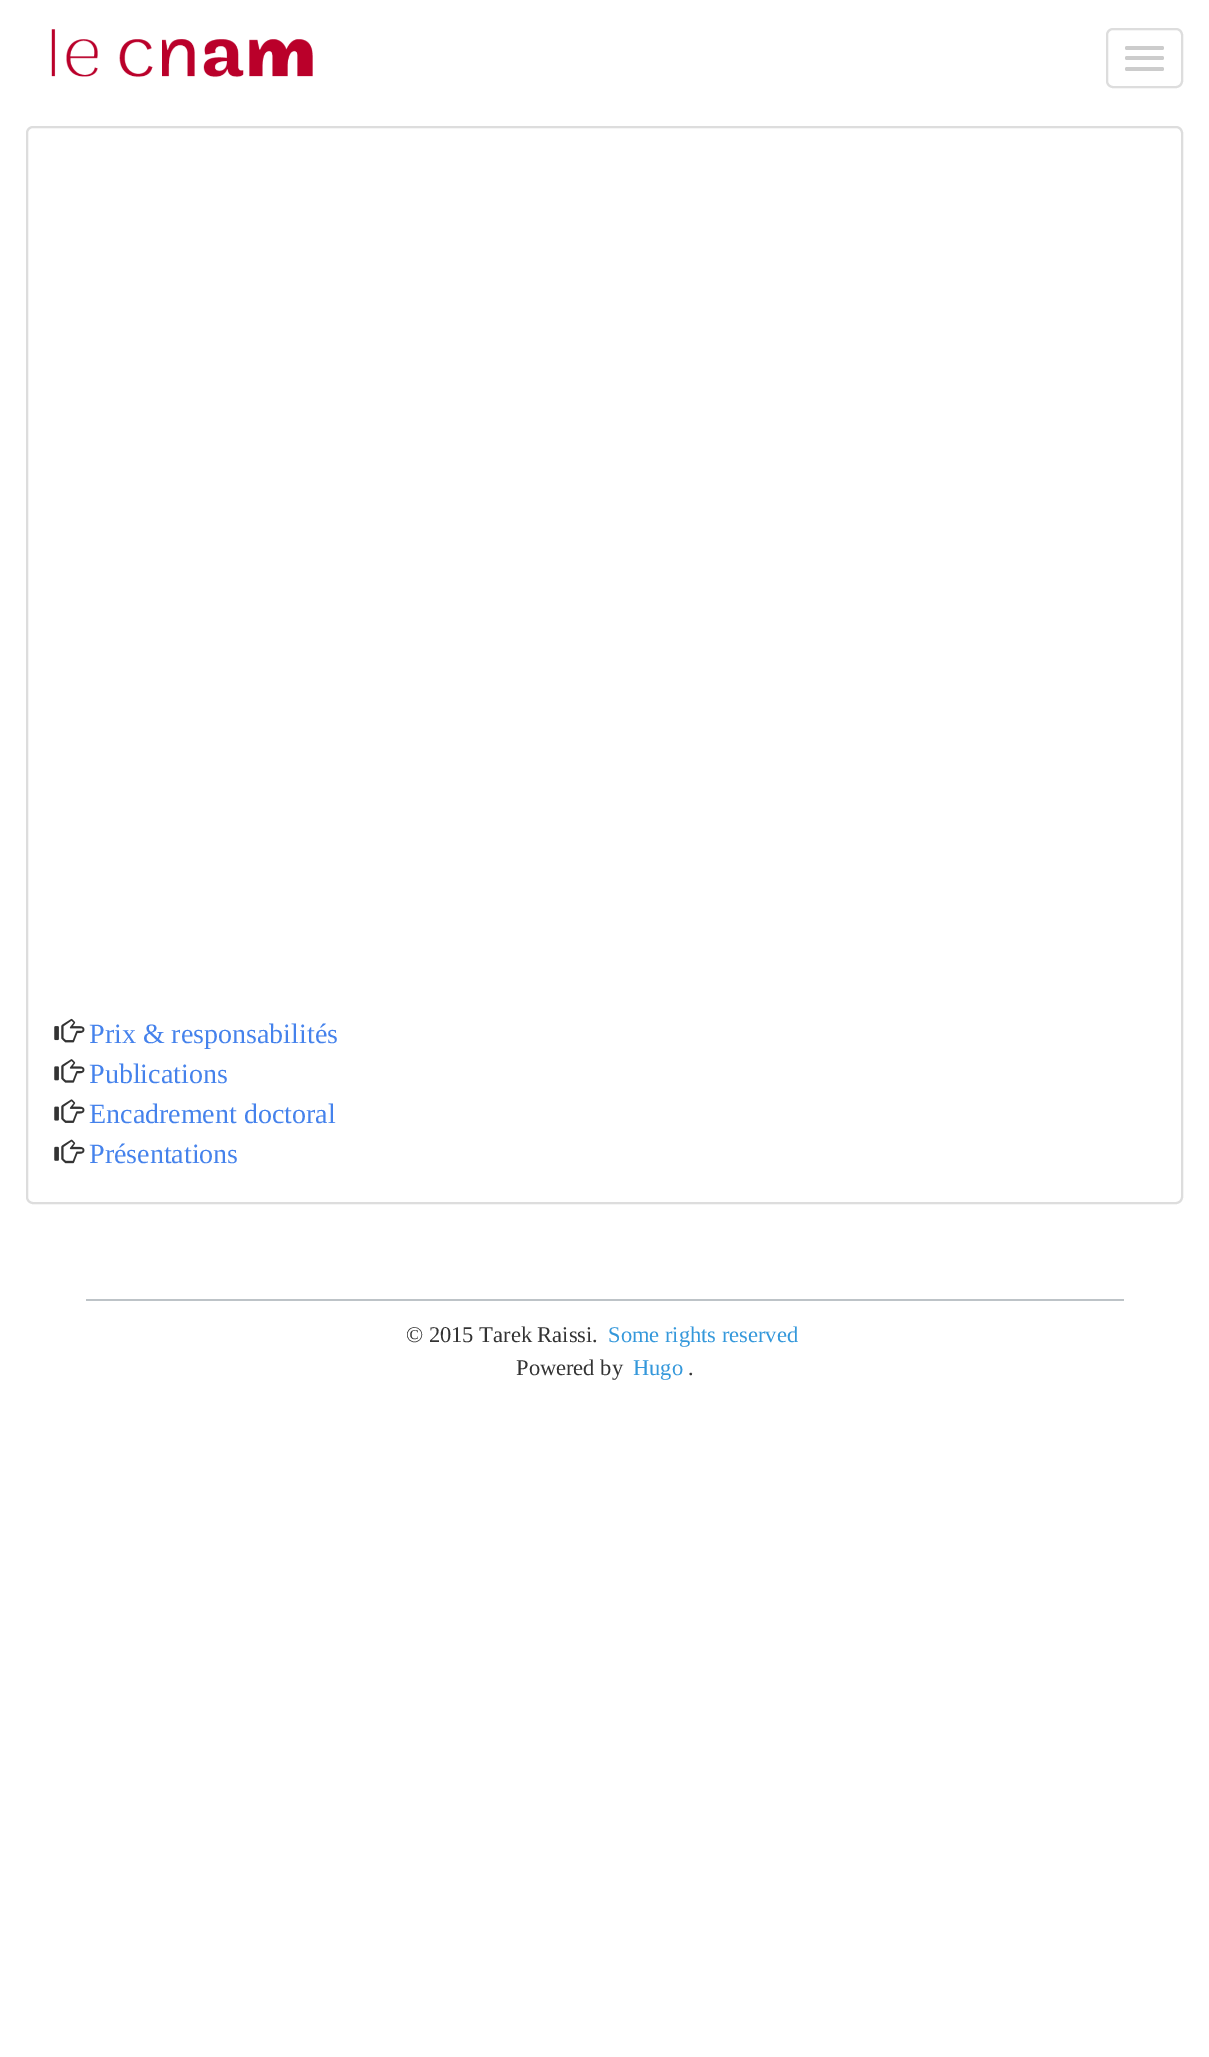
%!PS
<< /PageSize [1209 2057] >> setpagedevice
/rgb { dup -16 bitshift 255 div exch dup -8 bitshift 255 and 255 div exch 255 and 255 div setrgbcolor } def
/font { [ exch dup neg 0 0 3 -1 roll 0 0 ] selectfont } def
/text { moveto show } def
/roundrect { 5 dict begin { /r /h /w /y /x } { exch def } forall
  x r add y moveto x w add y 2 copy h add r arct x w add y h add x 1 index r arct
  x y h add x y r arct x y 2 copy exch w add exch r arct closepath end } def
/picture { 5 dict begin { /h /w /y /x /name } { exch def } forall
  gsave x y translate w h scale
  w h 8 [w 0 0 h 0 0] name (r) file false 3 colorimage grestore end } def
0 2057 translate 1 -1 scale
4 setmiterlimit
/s1 { /LiberationSerif-Regular 28 font 16#4582EC rgb } def
/s2 { /LiberationSerif-Regular 22.5 font 16#333333 rgb } def
/s3 { /LiberationSerif-Regular 22.5 font 16#3498DB rgb } def
16#FFFFFF rgb
0 0 1209 2057 rectfill
(pic1.raw) 51 29 262 49 picture
16#DDDDDD rgb
2 setlinewidth
1107 29 75 58 6 roundrect stroke
16#CCCCCC rgb
1125 46 39 4 2 roundrect fill
1125 56 39 4 2 roundrect fill
1125 67 39 4 2 roundrect fill
16#DDDDDD rgb
27 127 1155 1076 6 roundrect stroke
(pic2.raw) 54 1018 31 25 picture
s1
(Prix & responsabilités) 89 1043 text
(pic3.raw) 54 1059 31 24 picture
(Publications) 89 1083 text
(pic4.raw) 54 1099 31 24 picture
(Encadrement doctoral) 89 1123 text
(pic5.raw) 54 1139 31 25 picture
(Présentations) 89 1163 text
16#BDC3C7 rgb
86 1299 1038 2 rectfill
s2
(© 2015 Tarek Raissi.) 406 1342 text
s3
(Some rights reserved) 608 1342 text
s2
(Powered by) 516 1375 text
s3
(Hugo) 633 1375 text
s2
(.) 688 1375 text
showpage
